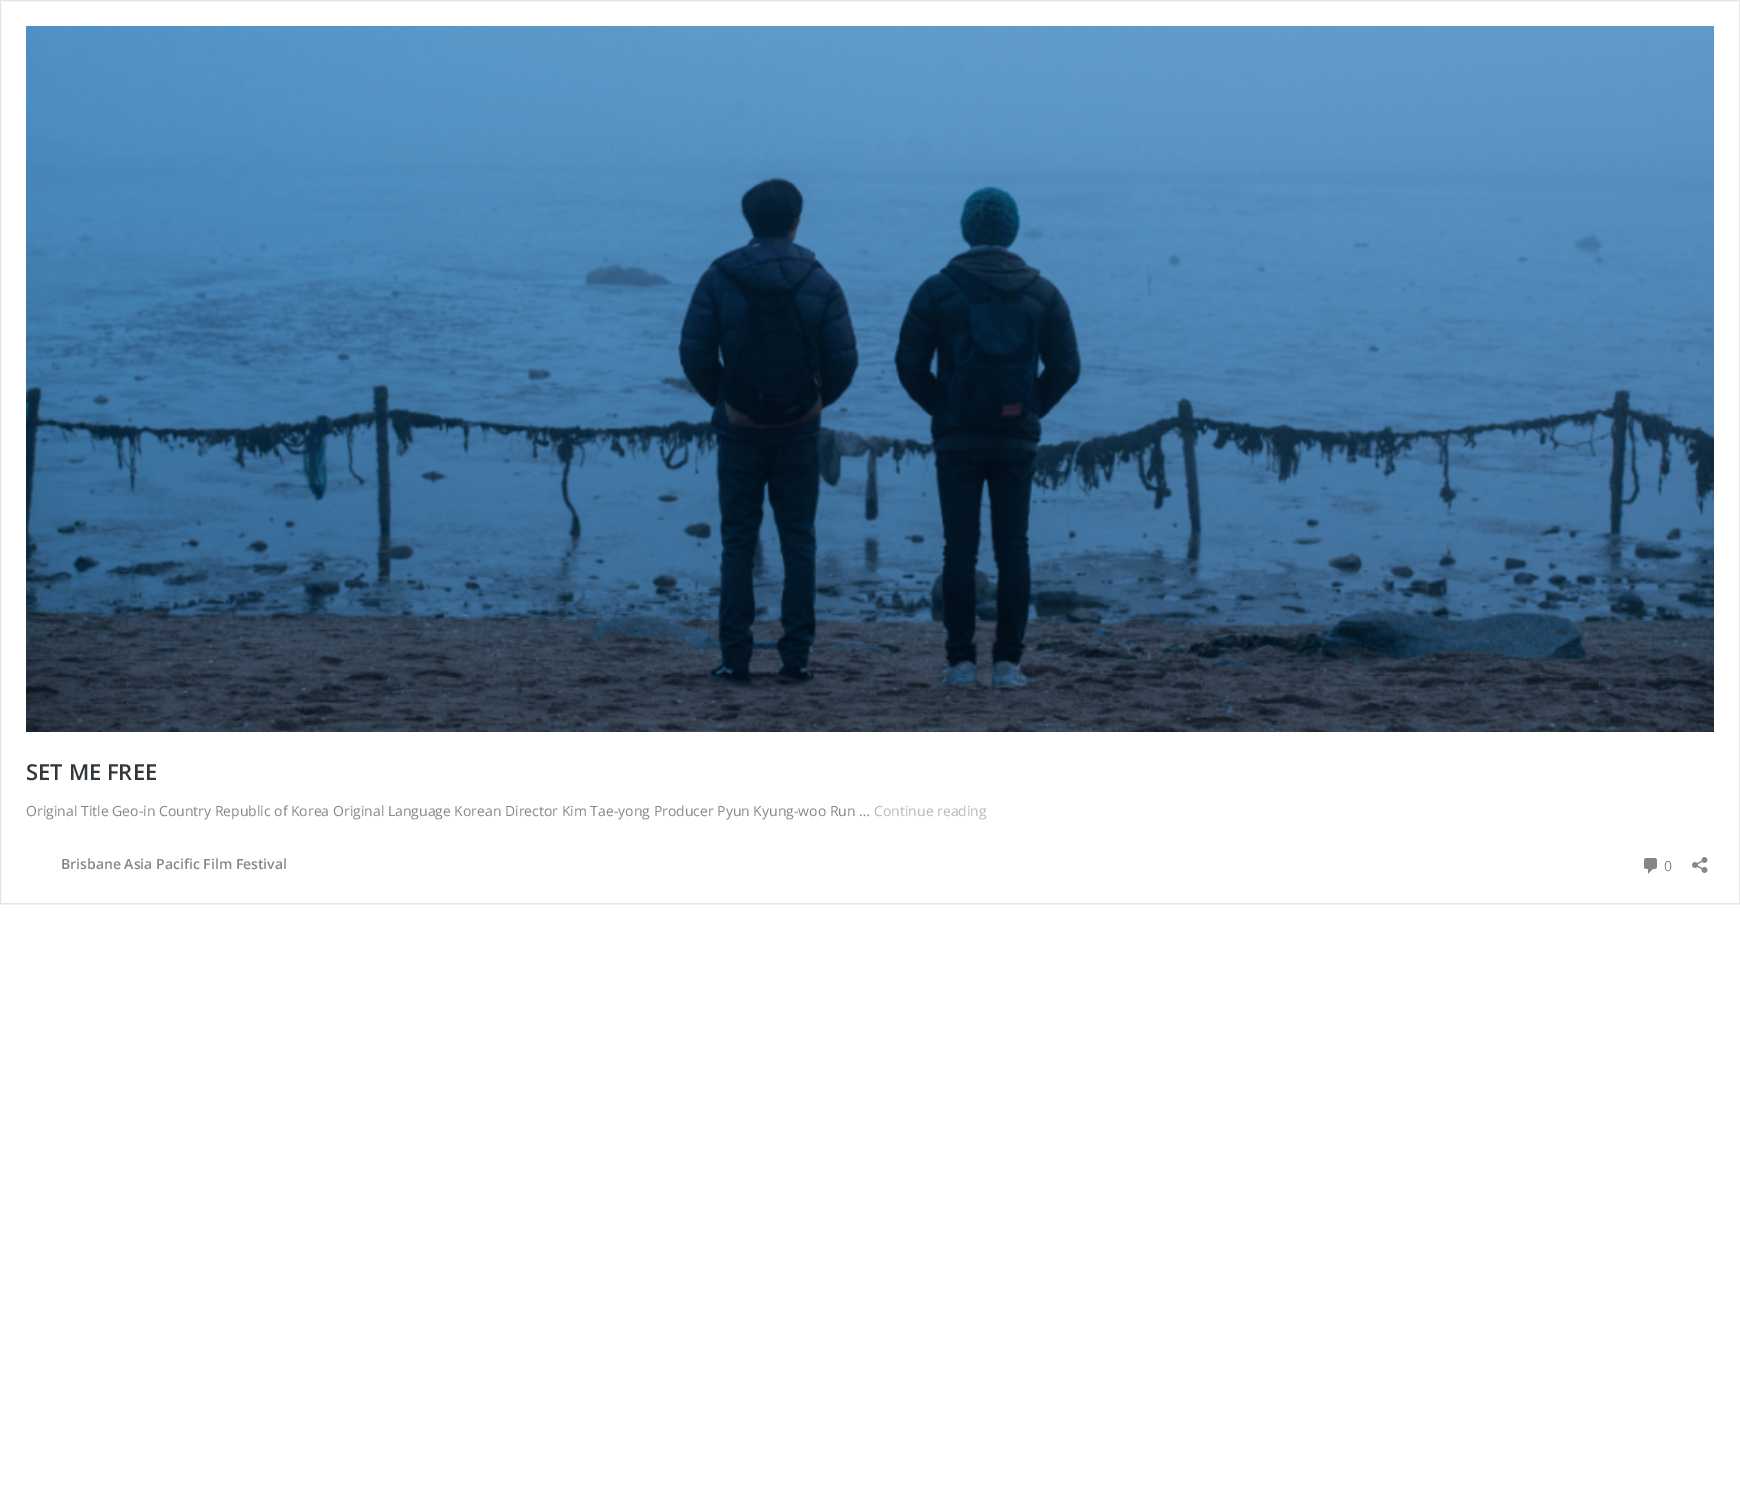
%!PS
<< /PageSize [1740 1508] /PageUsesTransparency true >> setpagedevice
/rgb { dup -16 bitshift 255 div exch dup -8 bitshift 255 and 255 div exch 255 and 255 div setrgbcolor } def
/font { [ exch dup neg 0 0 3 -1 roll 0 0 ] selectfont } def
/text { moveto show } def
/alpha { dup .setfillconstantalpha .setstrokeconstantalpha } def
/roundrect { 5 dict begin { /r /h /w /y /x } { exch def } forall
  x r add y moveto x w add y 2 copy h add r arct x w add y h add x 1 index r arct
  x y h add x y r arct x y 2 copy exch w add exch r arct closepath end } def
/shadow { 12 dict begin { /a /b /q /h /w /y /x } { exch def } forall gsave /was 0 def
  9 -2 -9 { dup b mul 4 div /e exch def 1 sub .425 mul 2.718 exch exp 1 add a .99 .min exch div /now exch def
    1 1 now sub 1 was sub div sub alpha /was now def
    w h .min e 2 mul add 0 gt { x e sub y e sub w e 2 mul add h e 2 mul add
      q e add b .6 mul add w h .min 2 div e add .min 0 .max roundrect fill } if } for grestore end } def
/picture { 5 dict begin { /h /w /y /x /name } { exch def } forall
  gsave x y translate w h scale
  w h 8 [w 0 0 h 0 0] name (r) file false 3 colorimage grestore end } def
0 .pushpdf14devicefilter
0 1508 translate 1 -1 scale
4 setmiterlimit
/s1 { /OpenSans-SemiBold 22 font 16#32373C rgb } def
/s2 { /OpenSans-Regular 14 font 16#82878C rgb } def
/s3 { /OpenSans-Regular 14 font 16#B4B9BE rgb } def
/s4 { /OpenSans-SemiBold 14 font 16#82878C rgb } def
16#FFFFFF rgb
0 0 1740 1508 rectfill
gsave
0 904 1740 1 rectclip
16#000000 rgb
0 1 1740 904 0 0.5 0.05 shadow
grestore
16#E5E5E5 rgb
0.5 0.5 1739 903 rectstroke
(pic1.raw) 26 26 1688 706 picture
s1
(SET ME FREE) 26 780 text
s2
(Original Title Geo-in Country Republic of Korea Original Language Korean Director Kim Tae-yong Producer Pyun Kyung-woo Run …) 26 816 text
s3
(Continue reading) 874 816 text
s4
(Brisbane Asia Pacific Film Festival) 61 869 text
(pic2.raw) 1644 858 13 16 picture
s2
(0) 1664 871 text
(pic3.raw) 1692 857 16 16 picture
.poppdf14devicefilter showpage
